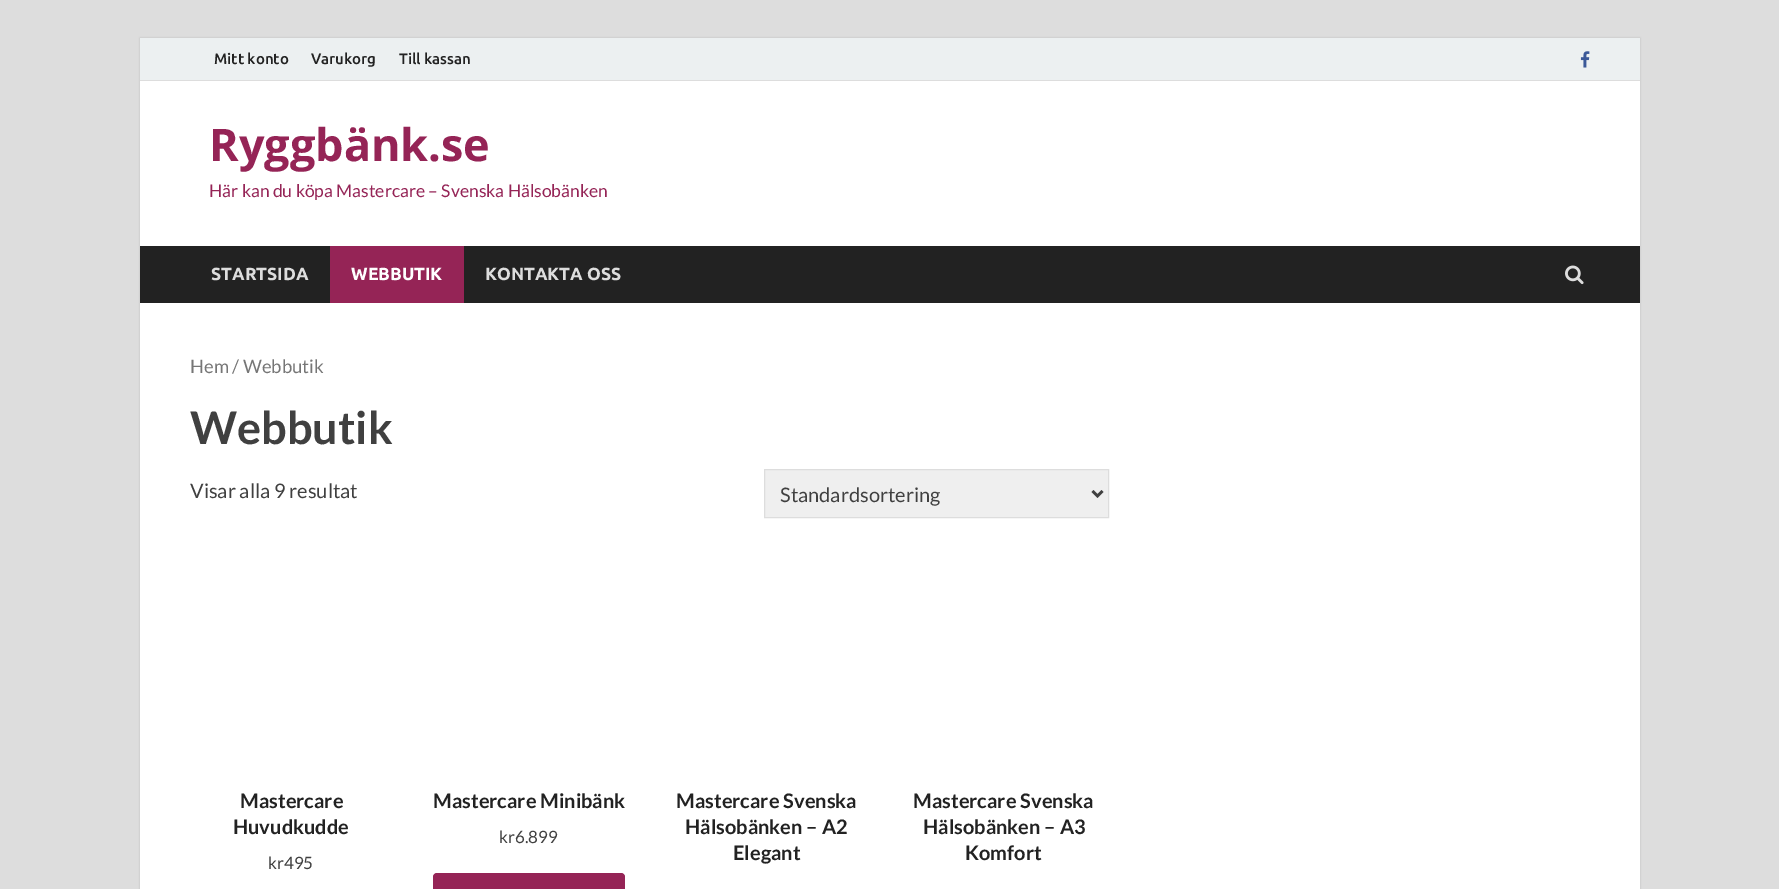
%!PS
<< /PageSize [1779 889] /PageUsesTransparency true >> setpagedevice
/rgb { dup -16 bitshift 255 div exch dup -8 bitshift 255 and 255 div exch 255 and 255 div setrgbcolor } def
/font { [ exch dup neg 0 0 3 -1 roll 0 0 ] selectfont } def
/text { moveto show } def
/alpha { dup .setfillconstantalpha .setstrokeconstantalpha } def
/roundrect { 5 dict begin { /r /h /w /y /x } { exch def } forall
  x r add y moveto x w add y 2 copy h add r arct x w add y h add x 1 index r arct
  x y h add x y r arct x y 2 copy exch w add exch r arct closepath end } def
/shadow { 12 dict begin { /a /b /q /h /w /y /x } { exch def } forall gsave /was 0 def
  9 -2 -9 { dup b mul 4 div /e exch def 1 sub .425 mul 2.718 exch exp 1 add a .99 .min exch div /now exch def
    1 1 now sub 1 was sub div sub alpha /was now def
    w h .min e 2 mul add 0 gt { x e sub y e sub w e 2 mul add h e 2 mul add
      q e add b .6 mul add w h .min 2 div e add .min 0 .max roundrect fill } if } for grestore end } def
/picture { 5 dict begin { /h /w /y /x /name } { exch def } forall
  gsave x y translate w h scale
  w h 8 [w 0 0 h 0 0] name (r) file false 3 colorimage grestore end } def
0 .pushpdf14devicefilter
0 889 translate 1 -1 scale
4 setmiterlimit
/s1 { /Ubuntu-Medium 15 font 16#222222 rgb } def
/s2 { /OpenSans-Bold 45 font 16#952456 rgb } def
/s3 { /Lato-Regular 17.5 font 16#952456 rgb } def
/s4 { /Ubuntu-Bold 17.5 font 16#DDDDDD rgb } def
/s5 { /Ubuntu-Bold 17.5 font 16#FFFFFF rgb } def
/s6 { /Lato-Regular 18.5 font 16#767676 rgb } def
/s7 { /Lato-Bold 45 font 16#404040 rgb } def
/s8 { /Lato-Regular 20 font 16#404040 rgb } def
/s9 { /Lato-Bold 20 font 16#222222 rgb } def
/s10 { /Lato-Regular 17 font 16#404040 rgb } def
16#DDDDDD rgb
0 0 1779 889 rectfill
16#BBBBBB rgb
140 38 1500 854 0 1 1 shadow
16#FFFFFF rgb
140 81 1500 808 rectfill
16#ECF0F1 rgb
140 38 1500 42 rectfill
16#DDDDDD rgb
140 80 1500 1 rectfill
s1
(Mitt konto) 214 64 text
(Varukorg) 311 64 text
(Till kassan) 399 64 text
(pic1.raw) 1580 51 10 17 picture
s2
(Ryggbänk.se) 209 161 text
s3
(Här kan du köpa Mastercare – Svenska Hälsobänken) 209 197 text
16#222222 rgb
140 246 1500 57 rectfill
s4
(STARTSIDA) 211 280 text
16#952456 rgb
330 246 134 57 rectfill
s5
(WEBBUTIK) 351 280 text
s4
(KONTAKTA OSS) 485 280 text
(pic2.raw) 1565 265 19 20 picture
s6
(Hem / Webbutik) 190 373 text
s7
(Webbutik) 190 444 text
s8
(Visar alla 9 resultat) 190 498 text
16#EFEFEF rgb
764.5 469.5 moveto 1108.5 469.5 lineto 1108.5 517.5 lineto 764.5 517.5 lineto closepath gsave fill grestore
16#DDDDDD rgb
stroke
16#404040 rgb
2.5 setlinewidth
1092.5 491 moveto 1097.5 496 lineto 1102.5 491 lineto stroke
(Standardsortering) 780 502 text
s9
(Mastercare) 240 808 text
(Huvudkudde) 233 834 text
s10
(kr495) 268 869 text
s9
(Mastercare Minibänk) 433 808 text
s10
(kr6.899) 499 843 text
16#952456 rgb
433 873 192 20 4 roundrect fill
s9
(Mastercare Svenska) 676 808 text
(Hälsobänken – A2) 685 834 text
(Elegant) 733 860 text
(Mastercare Svenska) 913 808 text
(Hälsobänken – A3) 923 834 text
(Komfort) 965 860 text
.poppdf14devicefilter showpage
